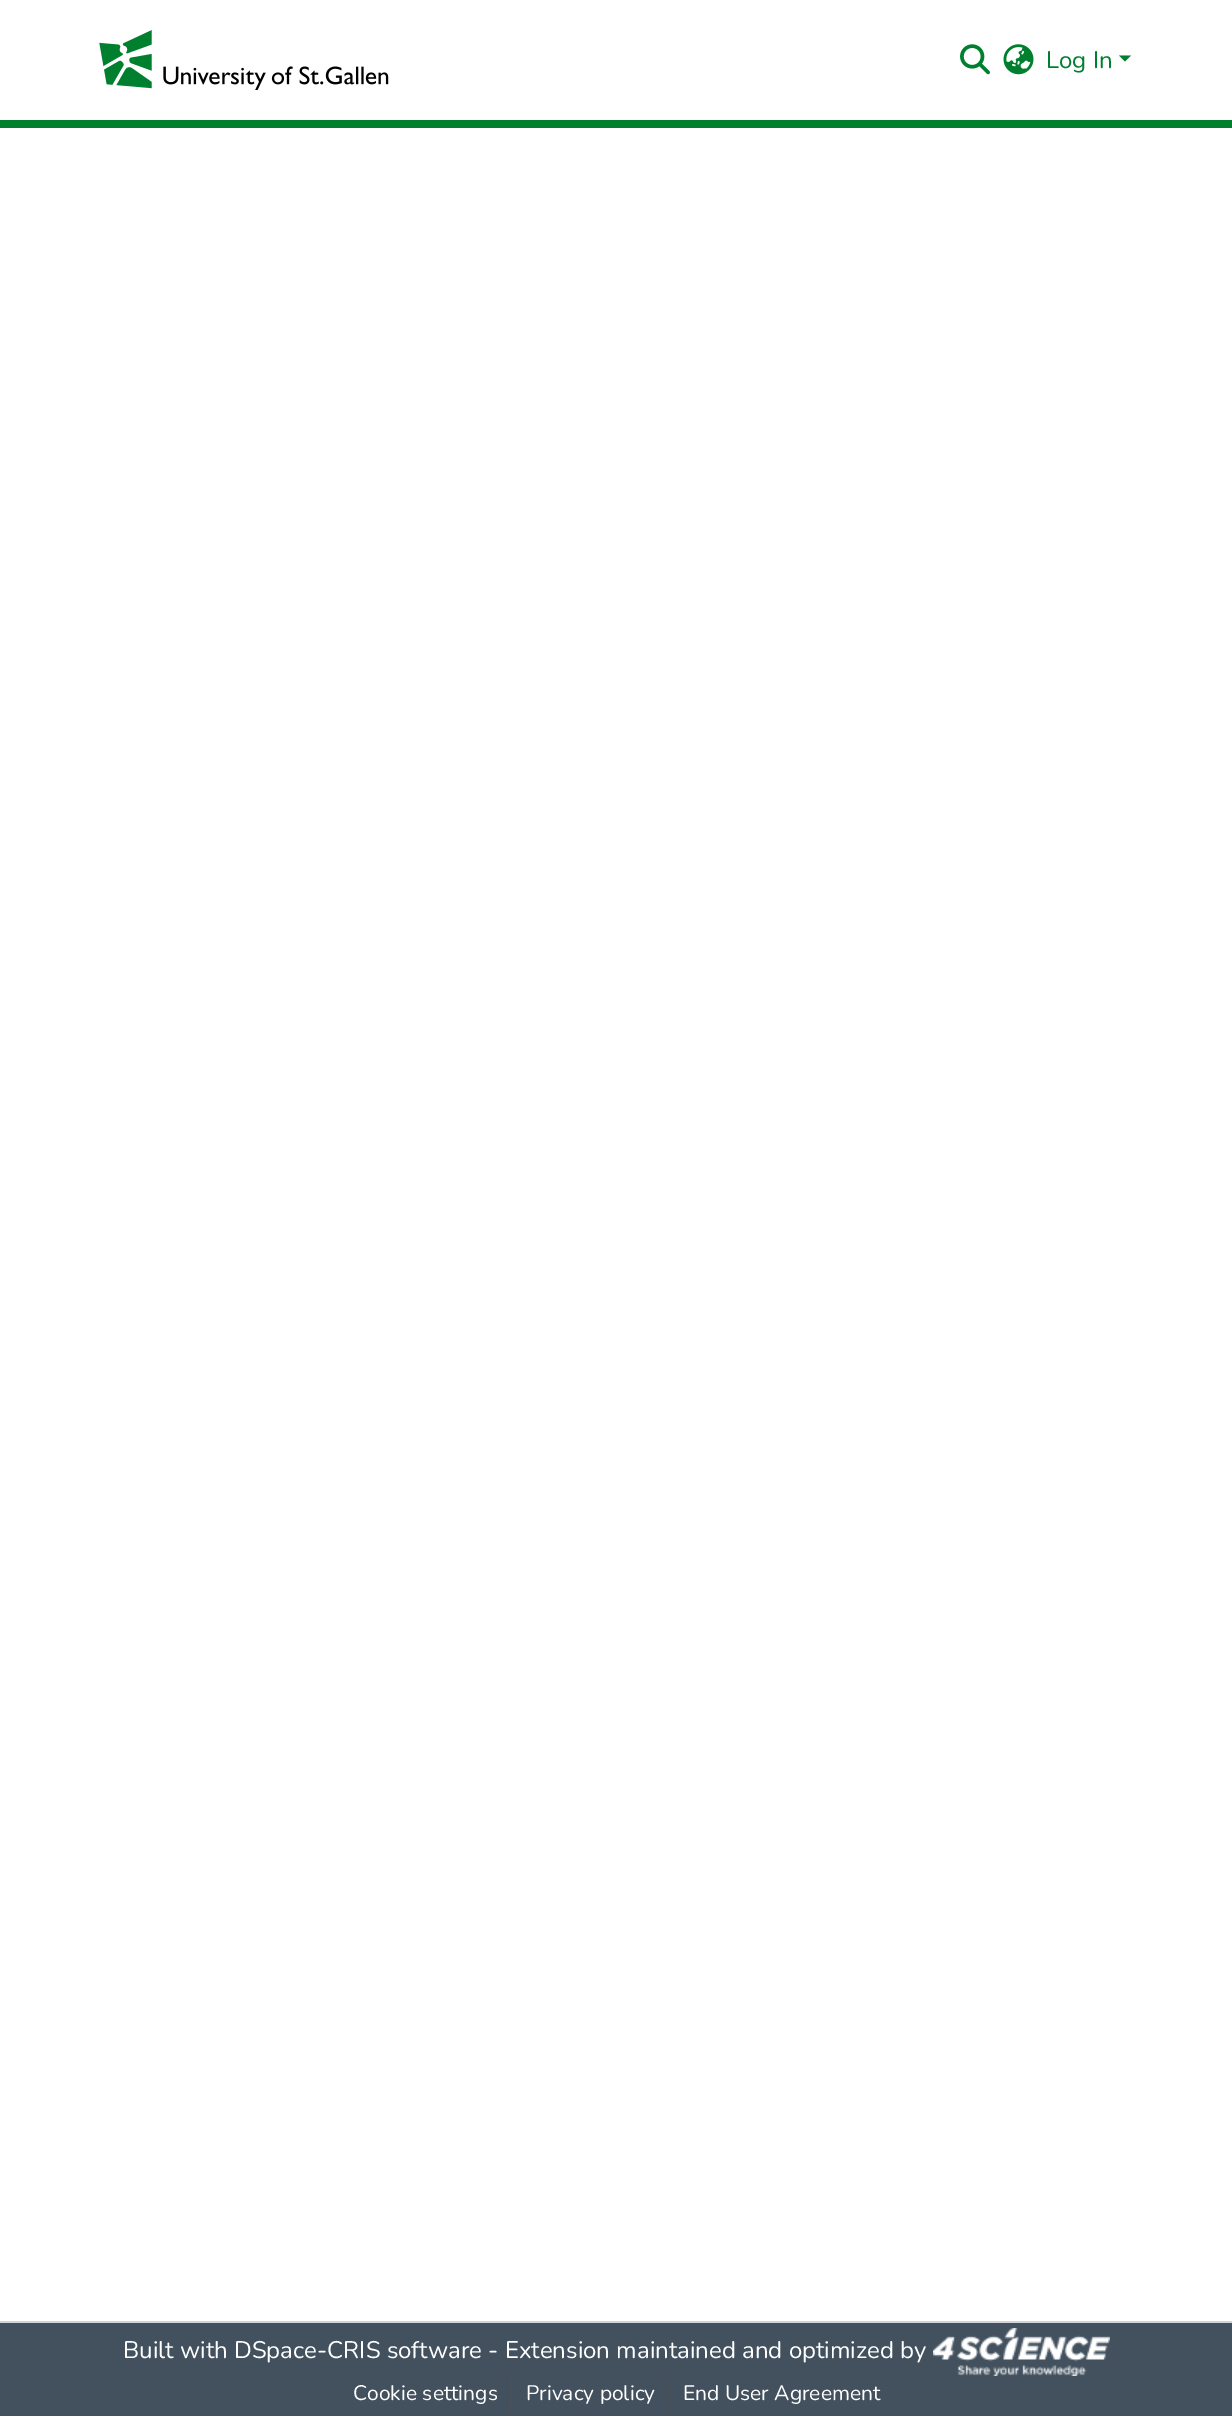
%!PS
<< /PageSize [1232 2416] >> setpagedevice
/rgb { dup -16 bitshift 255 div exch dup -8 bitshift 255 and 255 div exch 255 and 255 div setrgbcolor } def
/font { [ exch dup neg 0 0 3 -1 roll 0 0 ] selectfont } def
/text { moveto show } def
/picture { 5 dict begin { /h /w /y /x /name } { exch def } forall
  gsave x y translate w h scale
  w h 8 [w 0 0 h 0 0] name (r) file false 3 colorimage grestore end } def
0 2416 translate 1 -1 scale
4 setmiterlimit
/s1 { /Nunito-Regular 24 font 16#00802F rgb } def
/s2 { /Nunito-Regular 24 font 16#FFFFFF rgb } def
/s3 { /Nunito-Regular 21 font 16#FFFFFF rgb } def
16#FFFFFF rgb
0 0 1232 2416 rectfill
16#00802F rgb
0 120 1232 8 rectfill
(pic1.raw) 99 30 290 60 picture
(pic2.raw) 960 44 30 31 picture
(pic3.raw) 1003 44 31 31 picture
s1
(Log In) 1046 68 text
1119 55.5 moveto 1131 55.5 lineto 1125 61.5 lineto closepath fill
16#43515F rgb
0 2323 1232 93 rectfill
16#CED4DA rgb
0 2321 1232 2 rectfill
s2
(Built with DSpace-CRIS software - Extension maintained and optimized by) 123 2358 text
(pic4.raw) 933 2328 177 48 picture
s3
(Cookie settings) 353 2400 text
16#495057 rgb
510 2376 2 35 rectfill
s3
(Privacy policy) 526 2400 text
16#495057 rgb
668 2376 2 35 rectfill
s3
(End User Agreement) 683 2400 text
showpage
